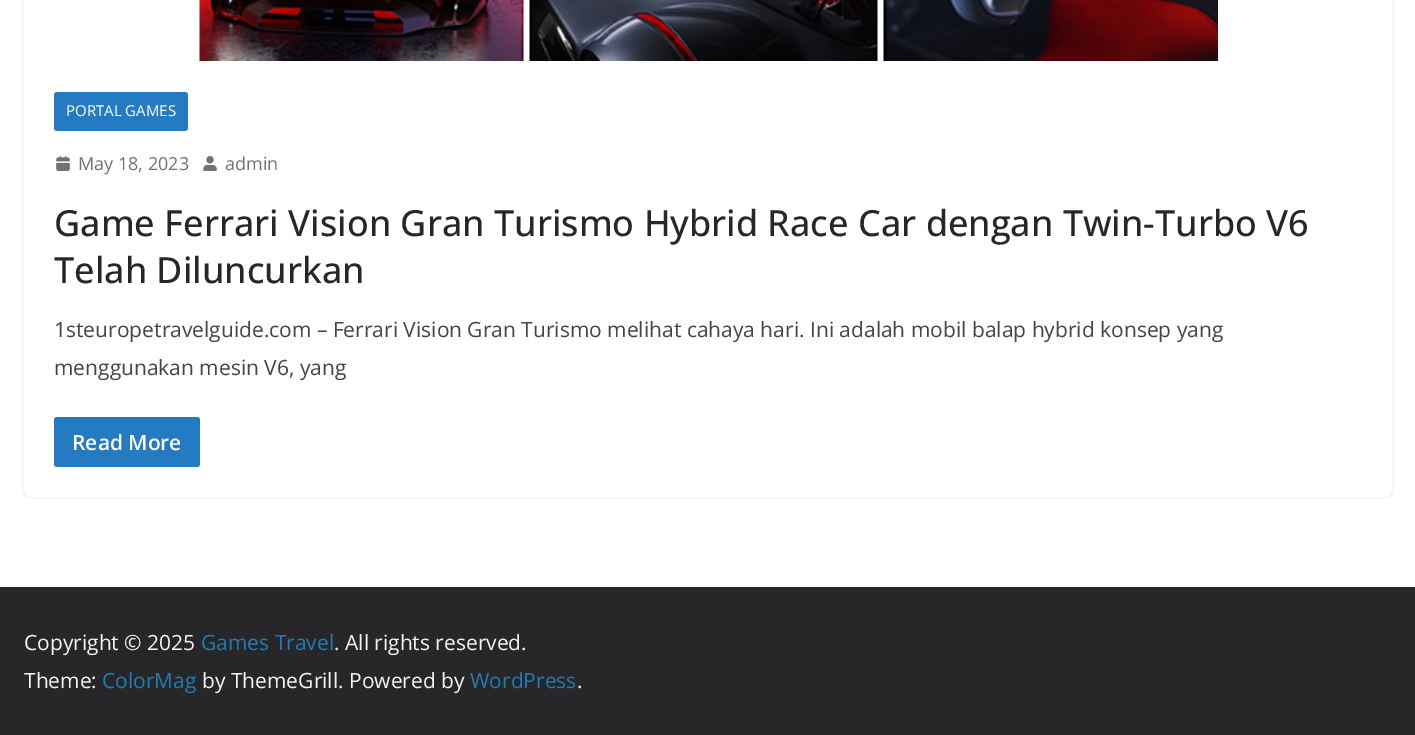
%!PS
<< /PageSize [1415 735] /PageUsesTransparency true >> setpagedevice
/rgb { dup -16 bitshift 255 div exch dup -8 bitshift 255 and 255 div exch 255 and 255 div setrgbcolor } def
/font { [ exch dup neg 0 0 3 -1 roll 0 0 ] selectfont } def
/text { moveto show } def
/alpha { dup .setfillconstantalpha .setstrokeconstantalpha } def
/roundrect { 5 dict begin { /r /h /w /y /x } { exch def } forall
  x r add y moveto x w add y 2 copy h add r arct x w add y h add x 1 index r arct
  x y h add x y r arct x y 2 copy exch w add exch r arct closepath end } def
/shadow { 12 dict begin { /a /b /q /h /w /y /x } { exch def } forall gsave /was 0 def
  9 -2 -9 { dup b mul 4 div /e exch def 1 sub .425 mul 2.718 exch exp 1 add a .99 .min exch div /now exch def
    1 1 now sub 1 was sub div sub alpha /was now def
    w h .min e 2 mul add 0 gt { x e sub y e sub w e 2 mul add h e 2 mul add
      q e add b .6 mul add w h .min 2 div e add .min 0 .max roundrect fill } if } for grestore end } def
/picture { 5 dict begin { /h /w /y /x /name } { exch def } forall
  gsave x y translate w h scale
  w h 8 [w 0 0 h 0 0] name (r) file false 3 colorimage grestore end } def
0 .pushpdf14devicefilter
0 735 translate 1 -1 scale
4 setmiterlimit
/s1 { /OpenSans-Regular 15 font 16#FFFFFF rgb } def
/s2 { /OpenSans-Regular 18 font 16#71717A rgb } def
/s3 { /OpenSans-Medium 36 font 16#27272A rgb } def
/s4 { /OpenSans-Regular 21 font 16#444444 rgb } def
/s5 { /OpenSans-SemiBold 21 font 16#FFFFFF rgb } def
/s6 { /OpenSans-Regular 21 font 16#F4F4F5 rgb } def
/s7 { /OpenSans-Regular 21 font 16#207DAF rgb } def
16#FFFFFF rgb
0 0 1415 735 rectfill
gsave
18 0 moveto 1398 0 lineto 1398 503 lineto 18 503 lineto closepath 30 -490 moveto 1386 -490 lineto 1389.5 -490 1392 -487.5 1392 -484 curveto 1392 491 lineto 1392 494.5 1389.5 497 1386 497 curveto 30 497 lineto 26.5 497 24 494.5 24 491 curveto 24 -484 lineto 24 -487.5 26.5 -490 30 -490 curveto closepath eoclip newpath
16#E4E4E7 rgb
24 -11 1368 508 6 1.5 1 shadow
grestore
(pic1.raw) 199 0 1019 61 picture
16#257BC1 rgb
54 92 134 39 3 roundrect fill
s1
(PORTAL GAMES) 66 116 text
(pic2.raw) 56 156 14 15 picture
s2
(May 18, 2023) 78 170 text
(pic3.raw) 203 156 14 15 picture
(admin) 225 170 text
s3
(Game Ferrari Vision Gran Turismo Hybrid Race Car dengan Twin-Turbo V6) 54 236 text
(Telah Diluncurkan) 54 283 text
s4
(1steuropetravelguide.com – Ferrari Vision Gran Turismo melihat cahaya hari. Ini adalah mobil balap hybrid konsep yang) 54 337 text
(menggunakan mesin V6, yang) 54 375 text
16#257BC1 rgb
54 417 146 50 3 roundrect fill
s5
(Read More) 72 450 text
16#27272A rgb
0 587 1415 148 rectfill
s6
(Copyright © 2025) 24 650 text
s7
(Games Travel) 201 650 text
s6
(. All rights reserved.) 334 650 text
(Theme:) 24 688 text
s7
(ColorMag) 102 688 text
s6
(by ThemeGrill. Powered by) 202 688 text
s7
(WordPress) 470 688 text
s6
(.) 577 688 text
.poppdf14devicefilter showpage
